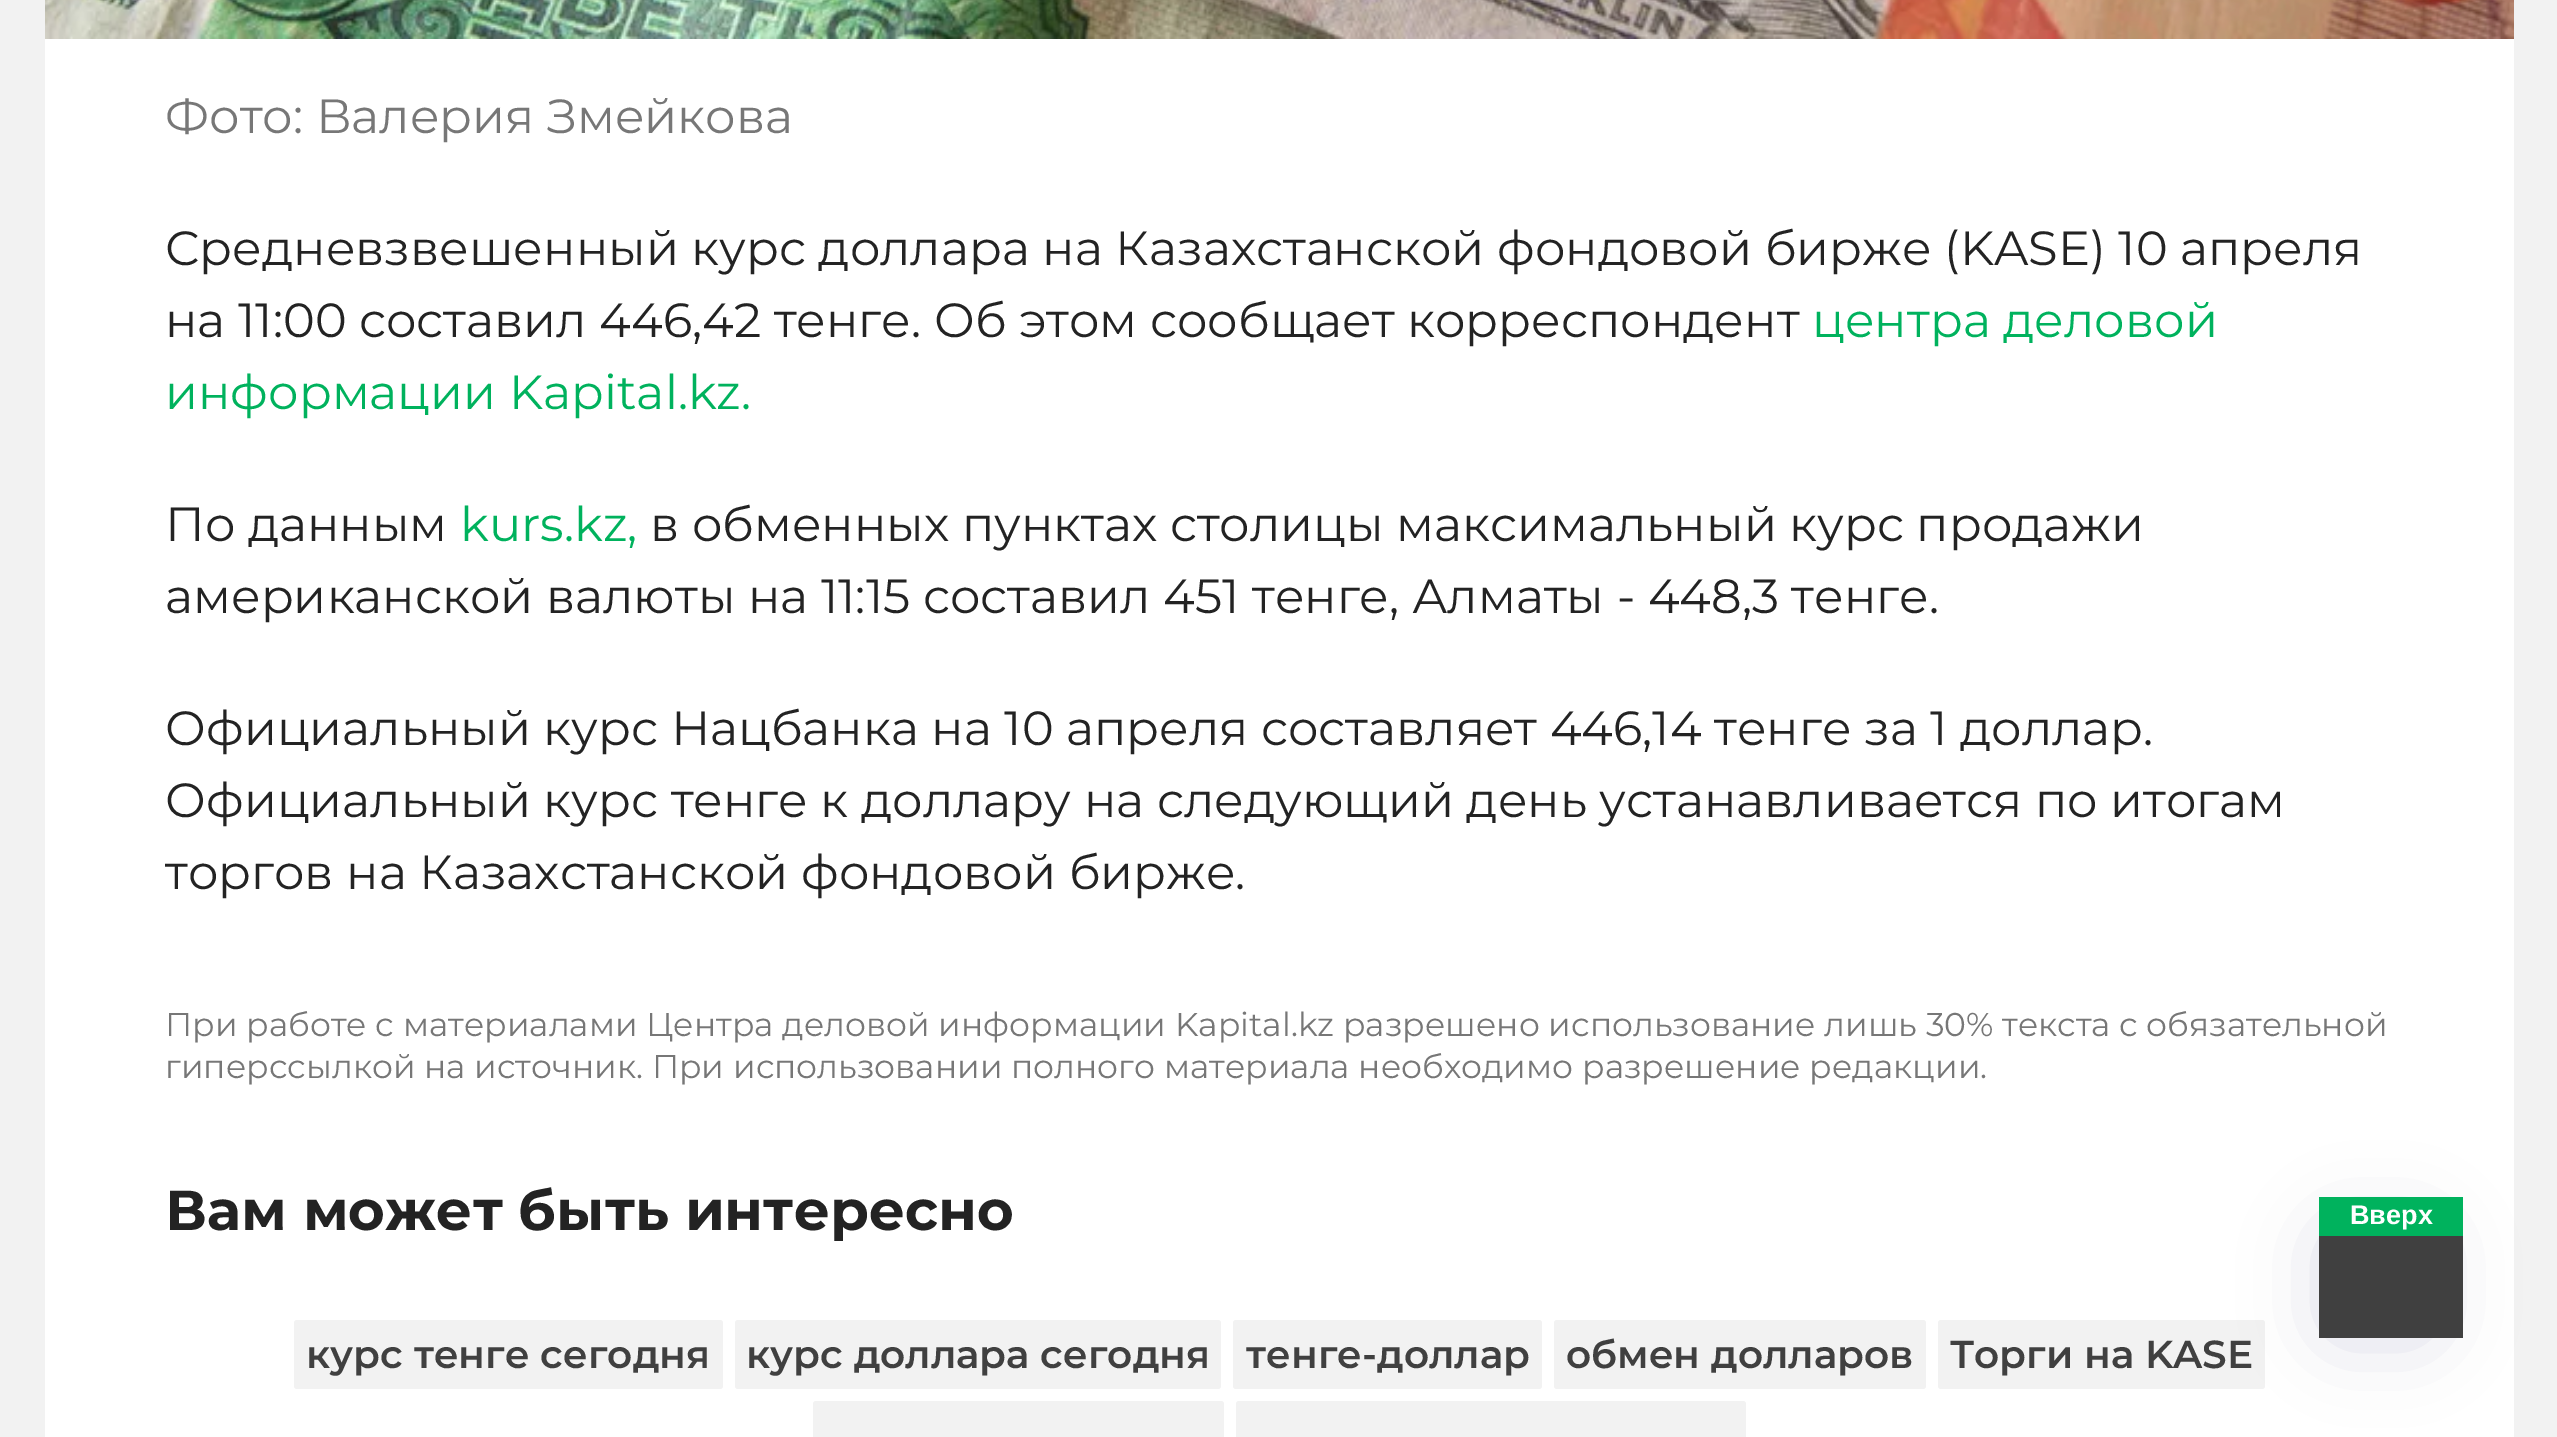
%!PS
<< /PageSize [2557 1437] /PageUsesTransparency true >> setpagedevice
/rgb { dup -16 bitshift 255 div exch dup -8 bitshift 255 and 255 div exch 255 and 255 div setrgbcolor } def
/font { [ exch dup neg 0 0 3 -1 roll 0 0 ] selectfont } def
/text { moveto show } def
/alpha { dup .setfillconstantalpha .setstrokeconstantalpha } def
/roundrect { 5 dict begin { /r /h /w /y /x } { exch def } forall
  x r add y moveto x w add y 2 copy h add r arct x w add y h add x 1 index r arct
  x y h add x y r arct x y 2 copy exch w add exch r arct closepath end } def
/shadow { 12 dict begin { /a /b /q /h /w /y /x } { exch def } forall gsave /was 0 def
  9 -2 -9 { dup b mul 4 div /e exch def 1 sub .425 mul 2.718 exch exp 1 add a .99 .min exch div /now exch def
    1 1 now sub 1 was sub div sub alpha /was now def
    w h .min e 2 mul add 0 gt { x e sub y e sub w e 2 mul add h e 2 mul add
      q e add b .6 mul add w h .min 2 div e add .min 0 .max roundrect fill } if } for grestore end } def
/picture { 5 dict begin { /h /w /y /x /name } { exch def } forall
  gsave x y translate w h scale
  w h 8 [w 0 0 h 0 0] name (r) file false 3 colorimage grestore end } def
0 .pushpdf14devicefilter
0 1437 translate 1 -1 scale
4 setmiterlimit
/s1 { /Montserrat-Regular 48 font 16#777777 rgb } def
/s2 { /Montserrat-Regular 48 font 16#232323 rgb } def
/s3 { /Montserrat-Regular 48 font 16#00B25D rgb } def
/s4 { /Montserrat-Regular 33 font 16#777777 rgb } def
/s5 { /Montserrat-Bold 56.2 font 16#232323 rgb } def
/s6 { /Montserrat-SemiBold 39 font 16#404040 rgb } def
/s7 { /LiberationSans-Bold 27 font 16#FFFFFF rgb } def
16#F2F2F2 rgb
0 0 2557 1437 rectfill
16#FFFFFF rgb
45 39 2469 1398 rectfill
(pic1.raw) 45 0 2469 39 picture
s1
(Фото: Валерия Змейкова) 165 133 text
s2
(Средневзвешенный курс доллара на Казахстанской фондовой бирже \(KASE\) 10 апреля) 165 265 text
(на 11:00 составил 446,42 тенге. Об этом сообщает корреспондент) 165 337 text
s3
(центра деловой) 1812 337 text
(информации Kapital.kz.) 165 409 text
s2
(По данным) 165 541 text
s3
(kurs.kz,) 460 541 text
s2
(в обменных пунктах столицы максимальный курс продажи) 650 541 text
(американской валюты на 11:15 составил 451 тенге, Алматы - 448,3 тенге.) 165 613 text
(Официальный курс Нацбанка на 10 апреля составляет 446,14 тенге за 1 доллар.) 165 745 text
(Официальный курс тенге к доллару на следующий день устанавливается по итогам) 165 817 text
(торгов на Казахстанской фондовой бирже.) 165 889 text
s4
(При работе с материалами Центра деловой информации Kapital.kz разрешено использование лишь 30% текста с обязательной) 165 1036 text
(гиперссылкой на источник. При использовании полного материала необходимо разрешение редакции.) 165 1078 text
s5
(Вам может быть интересно) 165 1230 text
16#F2F2F2 rgb
294 1320 429 69 3 roundrect fill
s6
(курс тенге сегодня) 306 1368 text
16#F2F2F2 rgb
735 1320 486 69 3 roundrect fill
s6
(курс доллара сегодня) 746 1368 text
16#F2F2F2 rgb
1233 1320 309 69 3 roundrect fill
s6
(тенге-доллар) 1246 1368 text
16#F2F2F2 rgb
1554 1320 372 69 3 roundrect fill
s6
(обмен долларов) 1566 1368 text
16#F2F2F2 rgb
1938 1320 327 69 3 roundrect fill
s6
(Торги на KASE) 1950 1368 text
16#F2F2F2 rgb
813 1401 411 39 3 roundrect fill
1236 1401 510 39 3 roundrect fill
16#8480B1 rgb
2319 1224 120 120 21 37.5 0.28 shadow
16#00B25D rgb
2319 1197 144 39 rectfill
s7
(Вверх) 2350 1224 text
16#404040 rgb
2319 1236 144 102 rectfill
.poppdf14devicefilter showpage
